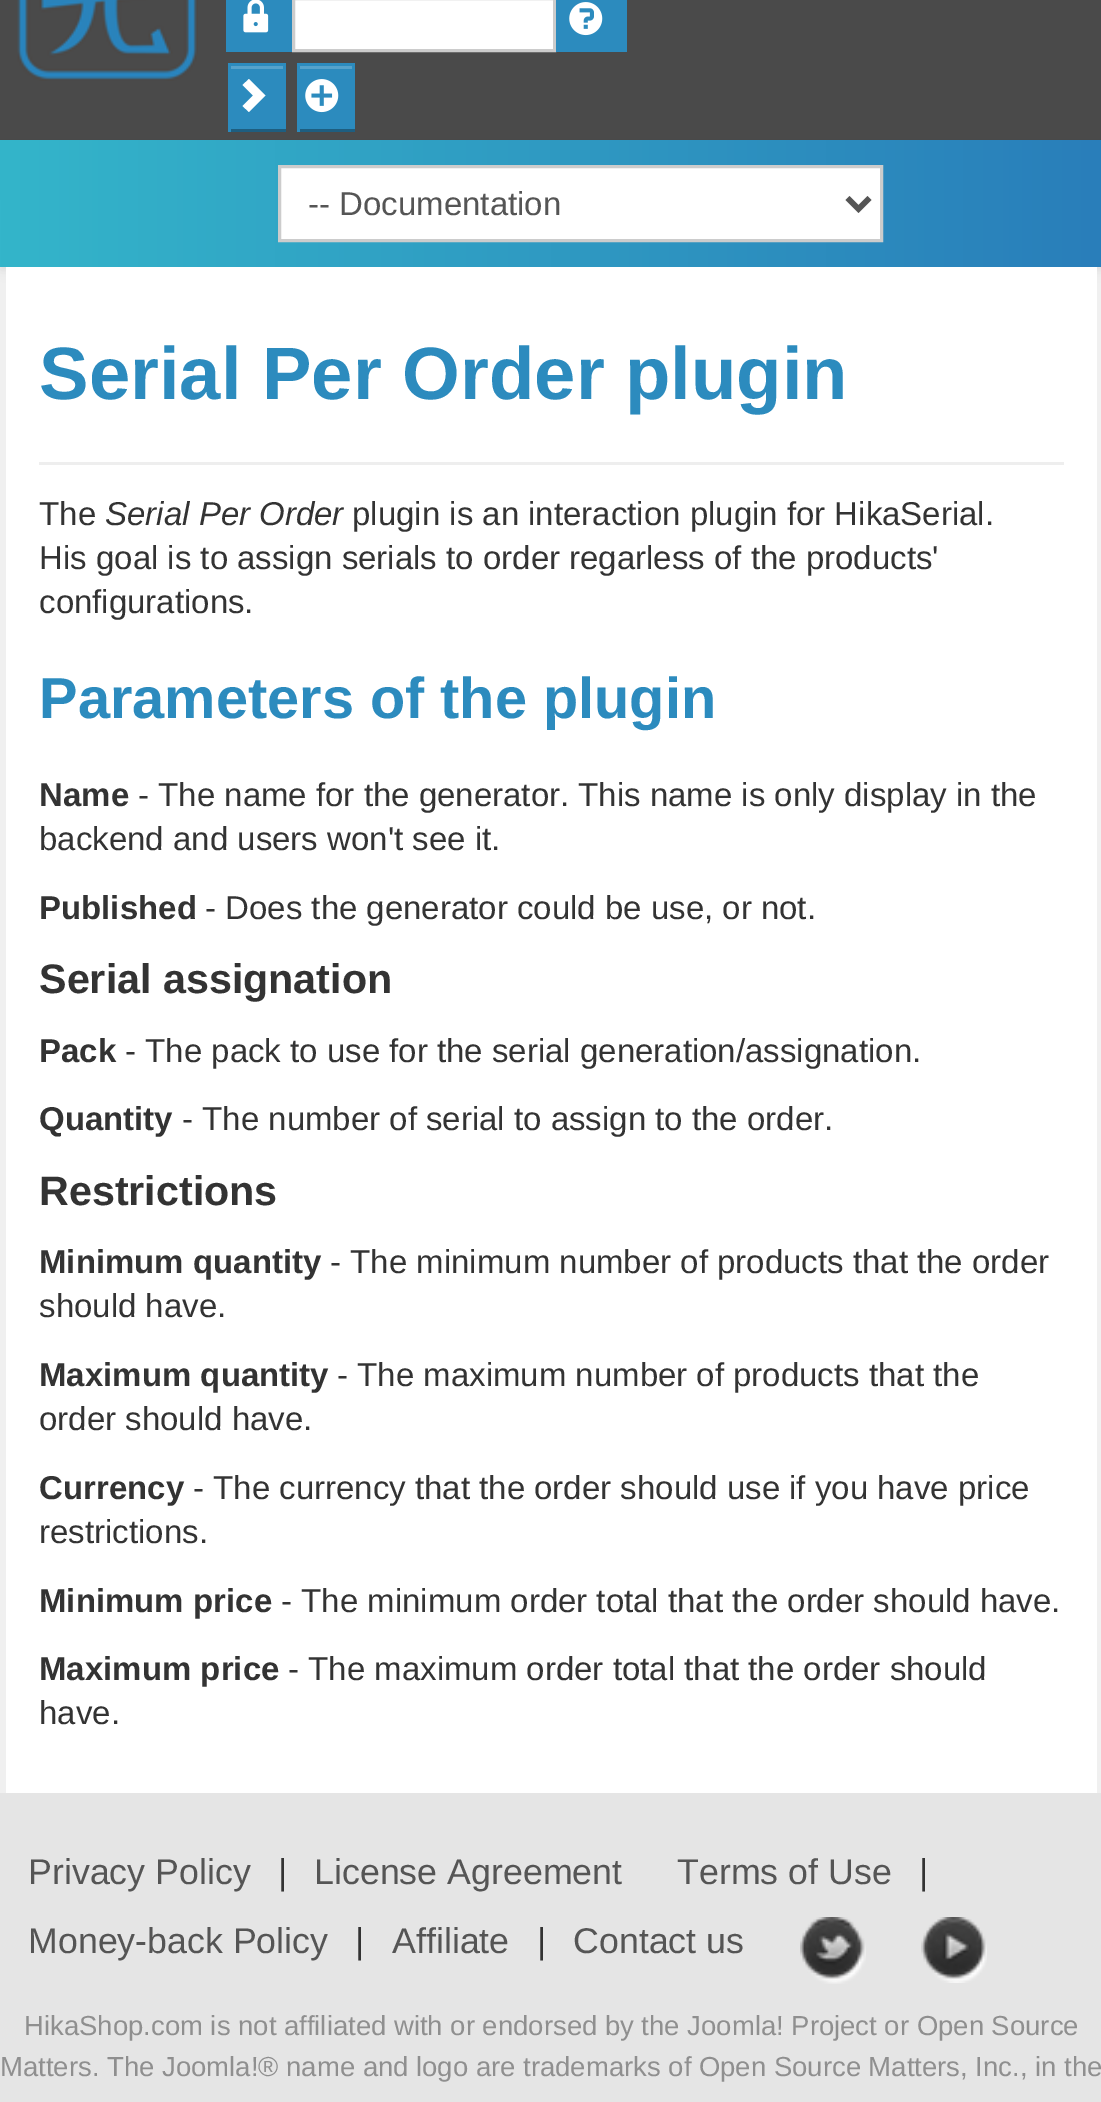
%!PS
<< /PageSize [1101 2102] /PageUsesTransparency true >> setpagedevice
/rgb { dup -16 bitshift 255 div exch dup -8 bitshift 255 and 255 div exch 255 and 255 div setrgbcolor } def
/font { [ exch dup neg 0 0 3 -1 roll 0 0 ] selectfont } def
/text { moveto show } def
/alpha { dup .setfillconstantalpha .setstrokeconstantalpha } def
/roundrect { 5 dict begin { /r /h /w /y /x } { exch def } forall
  x r add y moveto x w add y 2 copy h add r arct x w add y h add x 1 index r arct
  x y h add x y r arct x y 2 copy exch w add exch r arct closepath end } def
/shadow { 12 dict begin { /a /b /q /h /w /y /x } { exch def } forall gsave /was 0 def
  9 -2 -9 { dup b mul 4 div /e exch def 1 sub .425 mul 2.718 exch exp 1 add a .99 .min exch div /now exch def
    1 1 now sub 1 was sub div sub alpha /was now def
    w h .min e 2 mul add 0 gt { x e sub y e sub w e 2 mul add h e 2 mul add
      q e add b .6 mul add w h .min 2 div e add .min 0 .max roundrect fill } if } for grestore end } def
/picture { 5 dict begin { /h /w /y /x /name } { exch def } forall
  gsave x y translate w h scale
  w h 8 [w 0 0 h 0 0] name (r) file false 3 colorimage grestore end } def
0 .pushpdf14devicefilter
0 2102 translate 1 -1 scale
4 setmiterlimit
/s1 { /LiberationSans-Regular 33 font 16#555555 rgb } def
/s2 { /LiberationSans-Bold 74.25 font 16#2C8BBE rgb } def
/s3 { /LiberationSans-Regular 33 font 16#333333 rgb } def
/s4 { /LiberationSans-Italic 33 font 16#333333 rgb } def
/s5 { /LiberationSans-Bold 57.75 font 16#2C8BBE rgb } def
/s6 { /LiberationSans-Bold 33 font 16#333333 rgb } def
/s7 { /LiberationSans-Bold 41.25 font 16#333333 rgb } def
/s8 { /LiberationSans-Regular 35.75 font 16#555555 rgb } def
/s9 { /LiberationSans-Regular 35.75 font 16#333333 rgb } def
/s10 { /LiberationSans-Regular 27.5 font 16#8F8F8F rgb } def
16#F0F0F0 rgb
0 0 1101 2102 rectfill
16#4A4A4A rgb
0 0 1101 140 rectfill
(pic1.raw) 17 0 181 81 picture
16#2C8BBE rgb
226 0 66 52 rectfill
(pic2.raw) 243 0 26 33 picture
16#FFFFFF rgb
293.5 -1.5 moveto 554.5 -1.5 lineto 554.5 50.5 lineto 293.5 50.5 lineto closepath gsave fill grestore
16#CCCCCC rgb
3 setlinewidth
stroke
16#2C8BBE rgb
556 0 71 52 rectfill
(pic3.raw) 569 2 34 34 picture
16#000000 rgb
0 143 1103 127 0 5.5 0.07 shadow
16#2C8BBE rgb
231 63 55 66 rectfill
16#56A2CB rgb
231 66 52 3 rectfill
16#1E5E80 rgb
228 129 58 3 rectfill
16#2C8BBE rgb
228 63 3 69 rectfill
16#FFFFFF rgb
249 79 moveto 265.5 95.5 lineto 249 112 lineto 242.5 106 lineto 253 95.5 lineto 242.5 85 lineto closepath fill
16#2C8BBE rgb
300 63 55 66 rectfill
16#56A2CB rgb
300 66 52 3 rectfill
16#1E5E80 rgb
297 129 58 3 rectfill
16#2C8BBE rgb
297 63 3 69 rectfill
(pic4.raw) 305 79 34 34 picture
gsave 0 140 moveto 1101 140 lineto 1101 267 lineto 0 267 lineto closepath clip newpath
<< /ShadingType 2 /ColorSpace /DeviceRGB /Coords [0 204 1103 203] /Extend [true true] /Function << /FunctionType 2 /Domain [0 1] /C0 [0.204 0.71 0.792] /C1 [0.161 0.494 0.729] /N 1 >> >> shfill grestore
16#FFFFFF rgb
279.5 166.5 moveto 881.5 166.5 lineto 881.5 240.5 lineto 279.5 240.5 lineto closepath gsave fill grestore
16#CCCCCC rgb
stroke
16#555555 rgb
5.5 setlinewidth
847.5 198 moveto 858.5 209 lineto 869.5 198 lineto stroke
s1
(-- Documentation) 308 215 text
16#FFFFFF rgb
6 267 1091 1526 rectfill
16#EEEEEE rgb
39 462 1025 3 rectfill
s2
(Serial Per Order plugin) 39 399 text
s3
(The) 39 525 text
s4
(Serial Per Order) 105 525 text
s3
(plugin is an interaction plugin for HikaSerial.) 352 525 text
(His goal is to assign serials to order regarless of the products') 39 569 text
(configurations.) 39 613 text
s5
(Parameters of the plugin) 39 718 text
s6
(Name) 39 806 text
s3
(- The name for the generator. This name is only display in the) 138 806 text
(backend and users won't see it.) 39 850 text
s6
(Published) 39 919 text
s3
(- Does the generator could be use, or not.) 205 919 text
s7
(Serial assignation) 39 993 text
s6
(Pack) 39 1062 text
s3
(- The pack to use for the serial generation/assignation.) 125 1062 text
s6
(Quantity) 39 1130 text
s3
(- The number of serial to assign to the order.) 182 1130 text
s7
(Restrictions) 39 1205 text
s6
(Minimum quantity) 39 1273 text
s3
(- The minimum number of products that the order) 330 1273 text
(should have.) 39 1317 text
s6
(Maximum quantity) 39 1386 text
s3
(- The maximum number of products that the) 337 1386 text
(order should have.) 39 1430 text
s6
(Currency) 39 1499 text
s3
(- The currency that the order should use if you have price) 193 1499 text
(restrictions.) 39 1543 text
s6
(Minimum price) 39 1612 text
s3
(- The minimum order total that the order should have.) 281 1612 text
s6
(Maximum price) 39 1680 text
s3
(- The maximum order total that the order should) 288 1680 text
(have.) 39 1724 text
16#E5E5E5 rgb
0 1793 1101 309 rectfill
s8
(Privacy Policy) 28 1884 text
s9
(|) 278 1884 text
s8
(License Agreement) 314 1884 text
(Terms of Use) 677 1884 text
s9
(|) 919 1884 text
s8
(Money-back Policy) 28 1953 text
s9
(|) 355 1953 text
s8
(Affiliate) 392 1953 text
s9
(|) 537 1953 text
s8
(Contact us) 573 1953 text
(pic5.raw) 800 1917 66 67 picture
(pic6.raw) 921 1917 66 66 picture
s10
(HikaShop.com is not affiliated with or endorsed by the Joomla! Project or Open Source) 24 2035 text
(Matters. The Joomla!® name and logo are trademarks of Open Source Matters, Inc., in the) 0 2076 text
.poppdf14devicefilter showpage
